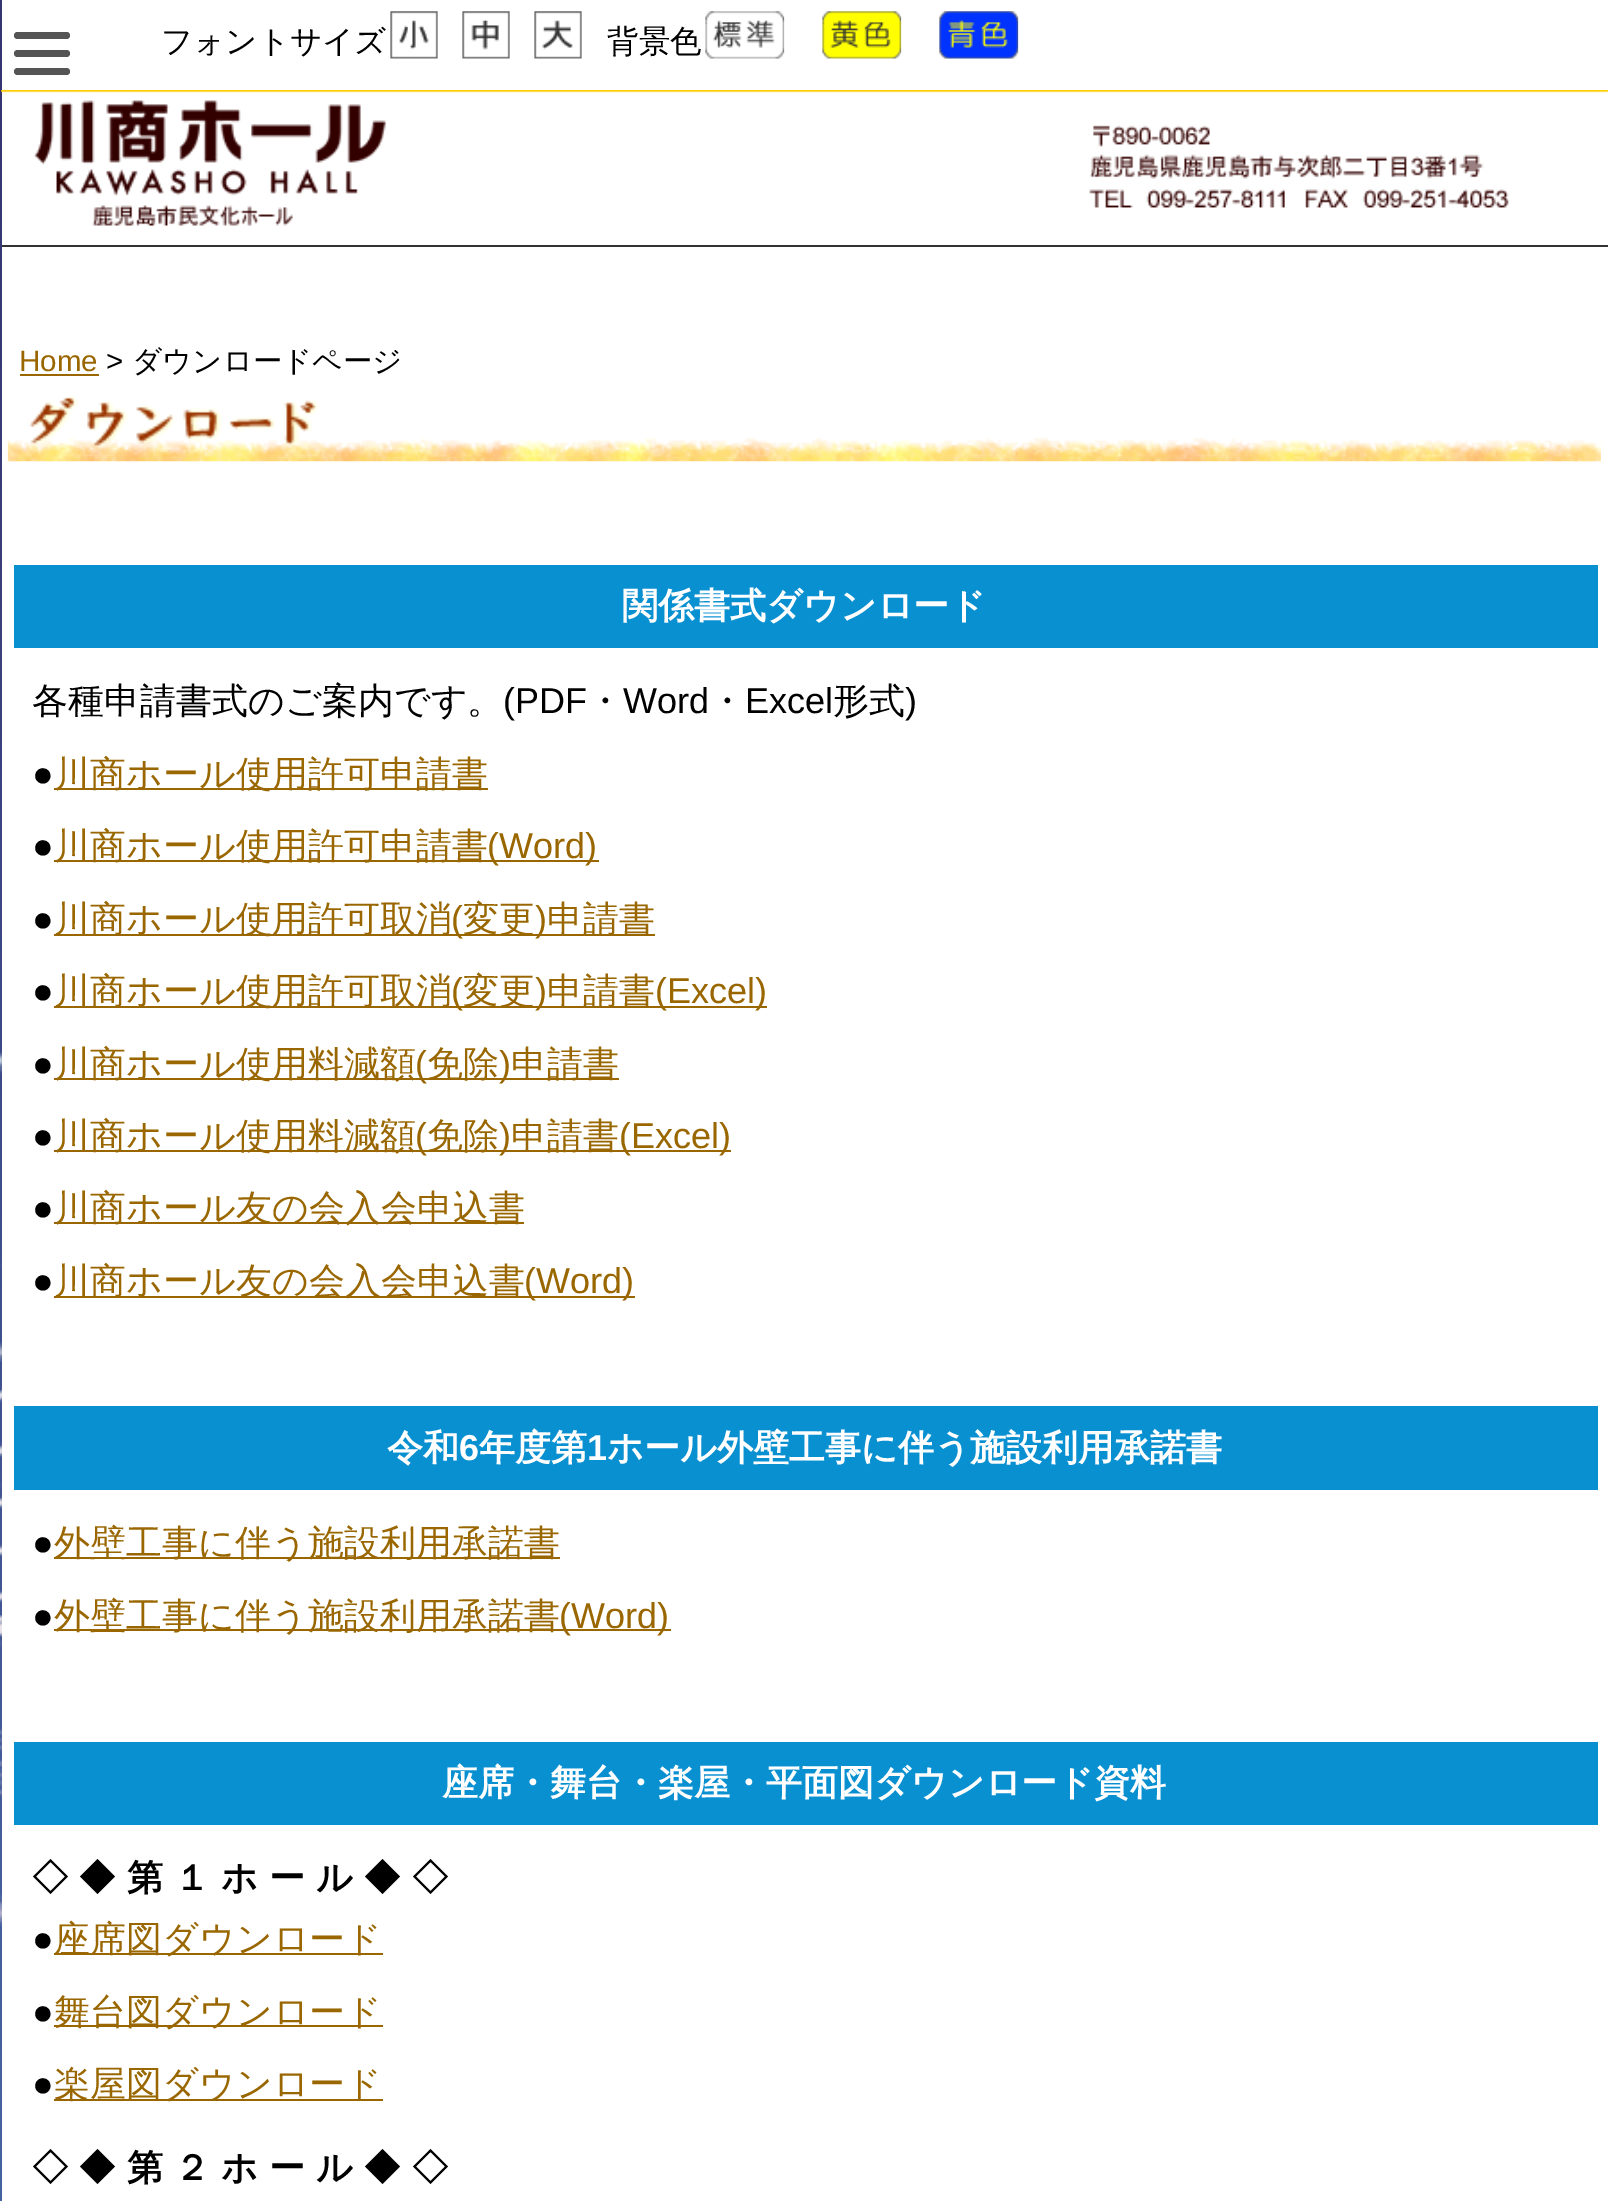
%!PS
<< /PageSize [1608 2201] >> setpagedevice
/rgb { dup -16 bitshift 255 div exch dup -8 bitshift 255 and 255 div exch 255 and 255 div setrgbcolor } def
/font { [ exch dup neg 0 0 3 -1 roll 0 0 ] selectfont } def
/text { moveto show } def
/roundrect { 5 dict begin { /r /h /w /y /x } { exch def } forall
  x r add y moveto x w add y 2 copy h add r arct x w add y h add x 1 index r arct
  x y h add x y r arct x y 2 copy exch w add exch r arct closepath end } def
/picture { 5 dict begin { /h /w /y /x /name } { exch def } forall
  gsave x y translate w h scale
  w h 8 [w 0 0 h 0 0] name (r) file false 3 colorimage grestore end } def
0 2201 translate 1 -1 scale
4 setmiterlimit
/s1 { /WenQuanYiZenHei-Medium 31.5 font 16#000000 rgb } def
/s2 { /LiberationSans-Regular 29.5 font 16#996600 rgb } def
/s3 { /LiberationSans-Regular 29.5 font 16#000000 rgb } def
/s4 { /WenQuanYiZenHei-Medium 29.5 font 16#000000 rgb } def
/s5 { /WenQuanYiZenHei-Bold 36 font 16#FFFFFF rgb } def
/s6 { /WenQuanYiZenHei-Medium 36 font 16#000000 rgb } def
/s7 { /LiberationSans-Regular 36 font 16#000000 rgb } def
/s8 { /WenQuanYiZenHei-Medium 36 font 16#996600 rgb } def
/s9 { /LiberationSans-Regular 36 font 16#996600 rgb } def
/s10 { /LiberationSans-Bold 36 font 16#FFFFFF rgb } def
16#FFFFFF rgb
0 0 1608 2201 rectfill
(pic1.raw) 0 0 2 2201 picture
16#555555 rgb
14 32 56 7 3.5 roundrect fill
14 50 56 7 3.5 roundrect fill
14 68 56 7 3.5 roundrect fill
s1
(フォントサイズ) 161 52 text
(pic2.raw) 390 11 48 48 picture
(pic3.raw) 462 11 48 48 picture
(pic4.raw) 534 11 48 48 picture
(背景色) 607 52 text
(pic5.raw) 705 11 80 48 picture
(pic6.raw) 822 11 80 48 picture
(pic7.raw) 939 11 80 48 picture
16#333333 rgb
2 245 1606 2 rectfill
(pic8.raw) 1 90 1607 136 picture
s2
(Home) 19 371 text
20 374 79 2 rectfill
s3
(>) 106 371 text
s4
(ダウンロードページ) 132 371 text
(pic9.raw) 7 396 1594 66 picture
16#0990D1 rgb
14 565 1584 83 rectfill
s5
(関係書式ダウンロード) 622 618 text
s6
(各種申請書式のご案内です。) 32 713 text
s7
(\(PDF) 503 713 text
s6
(・) 587 713 text
s7
(Word) 623 713 text
s6
(・) 709 713 text
s7
(Excel) 745 713 text
s6
(形式) 833 713 text
s7
(\)) 905 713 text
(●) 32 786 text
16#996600 rgb
54 788 434 2 rectfill
s8
(川商ホール使用許可申請書) 54 786 text
s7
(●) 32 858 text
16#996600 rgb
54 860 545 2 rectfill
s8
(川商ホール使用許可申請書) 54 858 text
s9
(\(Word\)) 487 858 text
s7
(●) 32 931 text
16#996600 rgb
54 934 601 2 rectfill
s8
(川商ホール使用許可取消) 54 931 text
s9
(\() 451 931 text
s8
(変更) 463 931 text
s9
(\)) 535 931 text
s8
(申請書) 547 931 text
s7
(●) 32 1003 text
16#996600 rgb
54 1006 713 2 rectfill
s8
(川商ホール使用許可取消) 54 1003 text
s9
(\() 451 1003 text
s8
(変更) 463 1003 text
s9
(\)) 535 1003 text
s8
(申請書) 547 1003 text
s9
(\(Excel\)) 655 1003 text
s7
(●) 32 1076 text
16#996600 rgb
54 1078 565 2 rectfill
s8
(川商ホール使用料減額) 54 1076 text
s9
(\() 415 1076 text
s8
(免除) 427 1076 text
s9
(\)) 499 1076 text
s8
(申請書) 511 1076 text
s7
(●) 32 1148 text
16#996600 rgb
54 1150 677 2 rectfill
s8
(川商ホール使用料減額) 54 1148 text
s9
(\() 415 1148 text
s8
(免除) 427 1148 text
s9
(\)) 499 1148 text
s8
(申請書) 511 1148 text
s9
(\(Excel\)) 619 1148 text
s7
(●) 32 1220 text
16#996600 rgb
54 1222 470 2 rectfill
s8
(川商ホール友の会入会申込書) 54 1220 text
s7
(●) 32 1293 text
16#996600 rgb
54 1296 581 2 rectfill
s8
(川商ホール友の会入会申込書) 54 1293 text
s9
(\(Word\)) 524 1293 text
16#0990D1 rgb
14 1406 1584 84 rectfill
s5
(令和) 387 1460 text
s10
(6) 459 1460 text
s5
(年度第) 479 1460 text
s10
(1) 587 1460 text
s5
(ホール外壁工事に伴う施設利用承諾書) 607 1460 text
s7
(●) 32 1555 text
16#996600 rgb
54 1557 506 2 rectfill
s8
(外壁工事に伴う施設利用承諾書) 54 1555 text
s7
(●) 32 1628 text
16#996600 rgb
54 1629 617 2 rectfill
s8
(外壁工事に伴う施設利用承諾書) 54 1628 text
s9
(\(Word\)) 559 1628 text
16#0990D1 rgb
14 1742 1584 83 rectfill
s5
(座席・舞台・楽屋・平面図ダウンロード資料) 442 1795 text
16#000000 rgb
32 1890 moveto 11.25 0 (◇◆第１ホール◆◇) ashow
s7
(●) 32 1951 text
16#996600 rgb
54 1953 329 2 rectfill
s8
(座席図ダウンロード) 54 1951 text
s7
(●) 32 2024 text
16#996600 rgb
54 2025 329 2 rectfill
s8
(舞台図ダウンロード) 54 2024 text
s7
(●) 32 2096 text
16#996600 rgb
54 2099 329 2 rectfill
s8
(楽屋図ダウンロード) 54 2096 text
/WenQuanYiZenHei-Bold 36 font
16#000000 rgb
32 2180 moveto 11.25 0 (◇◆第２ホール◆◇) ashow
showpage
